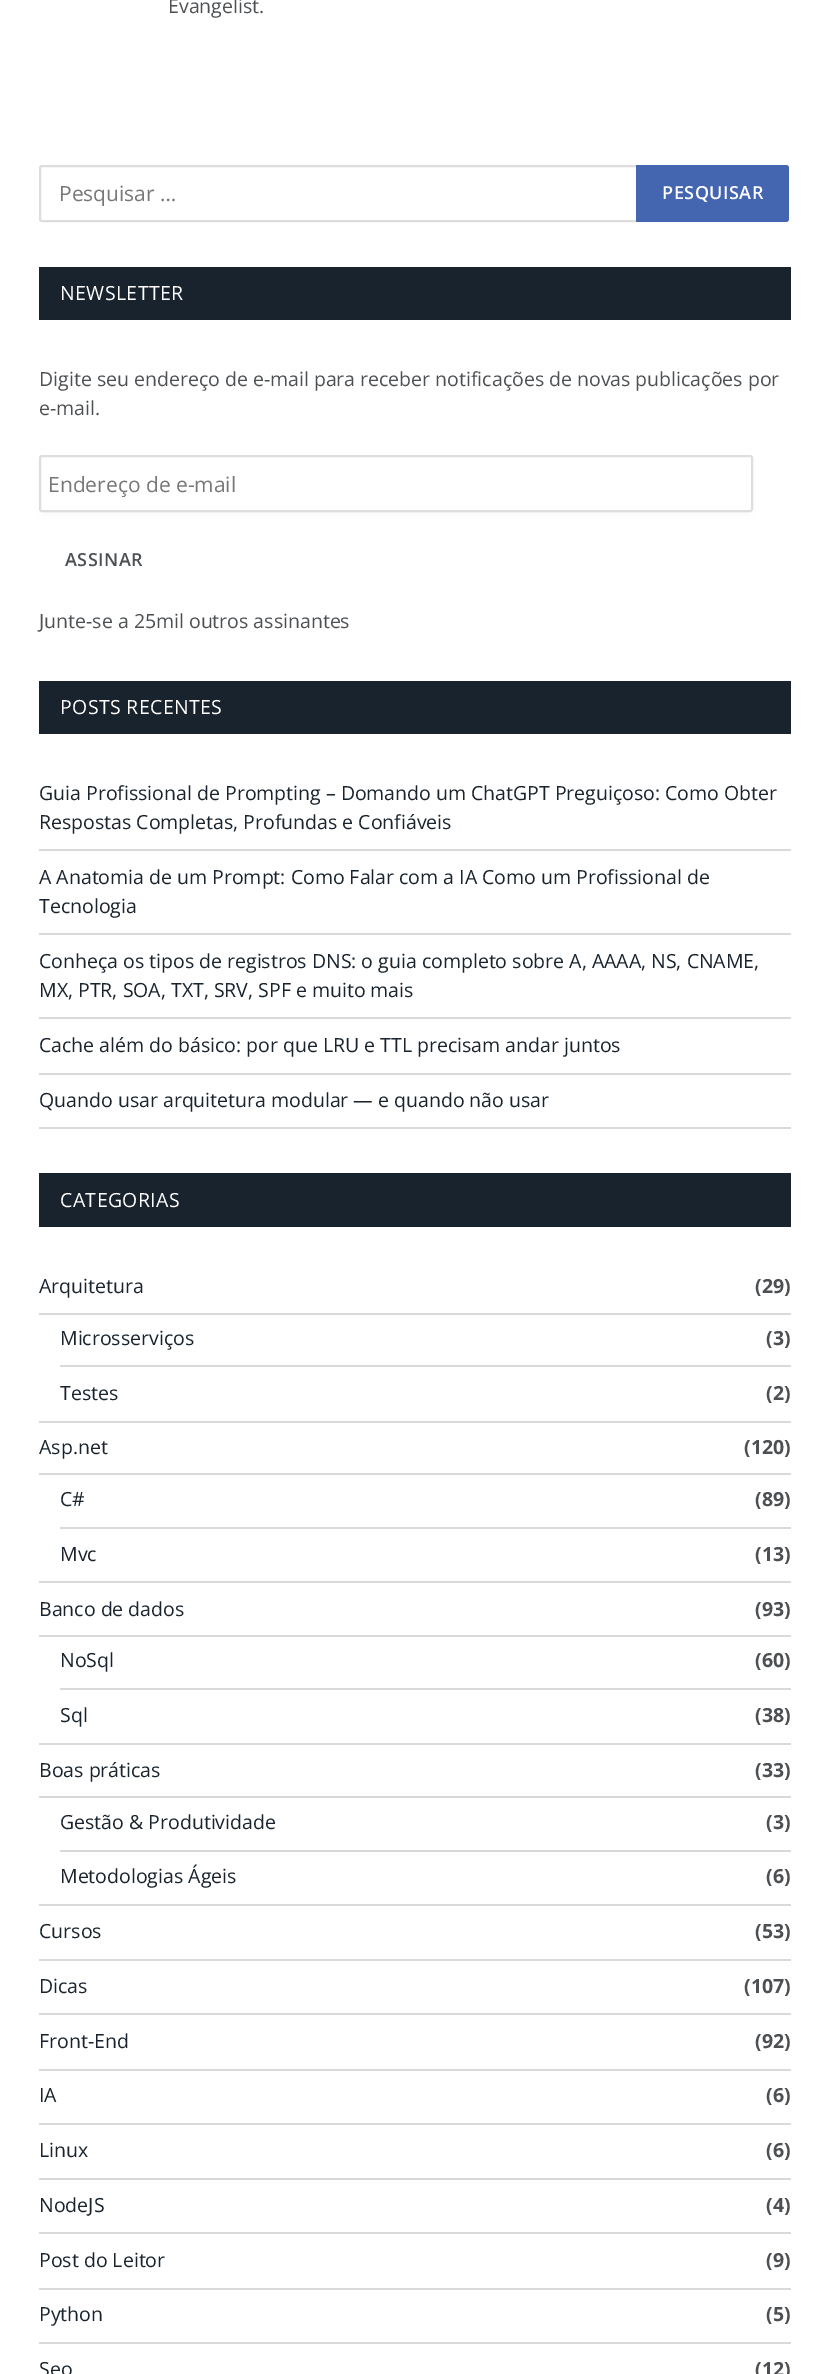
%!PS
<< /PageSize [828 2374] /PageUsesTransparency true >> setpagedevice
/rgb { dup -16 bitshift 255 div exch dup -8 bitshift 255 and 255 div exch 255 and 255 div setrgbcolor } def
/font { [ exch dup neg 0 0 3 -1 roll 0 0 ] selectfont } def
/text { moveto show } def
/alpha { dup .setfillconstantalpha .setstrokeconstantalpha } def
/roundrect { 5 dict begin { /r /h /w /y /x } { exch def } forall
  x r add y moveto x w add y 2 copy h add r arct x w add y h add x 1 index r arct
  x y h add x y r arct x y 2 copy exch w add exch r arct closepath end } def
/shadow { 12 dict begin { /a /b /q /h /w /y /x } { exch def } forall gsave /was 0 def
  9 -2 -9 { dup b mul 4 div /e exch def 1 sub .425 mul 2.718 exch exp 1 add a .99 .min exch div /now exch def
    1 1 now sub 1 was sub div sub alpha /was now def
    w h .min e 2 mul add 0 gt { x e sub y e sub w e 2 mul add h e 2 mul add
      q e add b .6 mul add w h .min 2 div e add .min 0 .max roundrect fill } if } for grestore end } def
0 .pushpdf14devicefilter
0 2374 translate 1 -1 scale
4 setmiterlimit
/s1 { /OpenSans-Regular 19.5 font 16#4D5053 rgb } def
/s2 { /OpenSans-Regular 21 font 16#777777 rgb } def
/s3 { /OpenSans-Regular 19.5 font 16#19232D rgb } def
/s4 { /OpenSans-Bold 19.5 font 16#4D5053 rgb } def
16#FFFFFF rgb
0 0 828 2374 rectfill
s1
(Evangelist.) 168 13 text
16#DDDDDD rgb
2 setlinewidth
40 166 598 55 2 roundrect stroke
s2
(Pesquisar …) 59 201 text
16#4465B0 rgb
636 165 moveto 786 165 lineto 787.5 165 789 166.5 789 168 curveto 789 219 lineto 789 220.5 787.5 222 786 222 curveto 636 222 lineto closepath fill
/OpenSans-SemiBold 18 font
16#FFFFFF rgb
662 199 moveto 0.5 0 (PESQUISAR) ashow
16#19232D rgb
39 267 752 53 rectfill
/OpenSans-Regular 19.5 font
16#FFFFFF rgb
60 300 moveto 0.4 0 (NEWSLETTER) ashow
s1
(Digite seu endereço de e-mail para receber notificações de novas publicações por) 39 386 text
(e-mail.) 39 415 text
16#000000 rgb
45 464 702 45 0 5 0.1 shadow
16#FFFFFF rgb
40 456 712 55 2 roundrect gsave fill grestore
16#DDDDDD rgb
stroke
s2
(Endereço de e-mail) 48 492 text
/OpenSans-SemiBold 18 font
16#4D5053 rgb
65 566 moveto 0.5 0 (ASSINAR) ashow
s1
(Junte-se a 25mil outros assinantes) 39 628 text
16#19232D rgb
39 681 752 53 rectfill
16#FFFFFF rgb
60 714 moveto 0.4 0 (POSTS RECENTES) ashow
16#D9D9D9 rgb
39 849 752 2 rectfill
s3
(Guia Profissional de Prompting – Domando um ChatGPT Preguiçoso: Como Obter) 39 800 text
(Respostas Completas, Profundas e Confiáveis) 39 829 text
16#D9D9D9 rgb
39 933 752 2 rectfill
s3
(A Anatomia de um Prompt: Como Falar com a IA Como um Profissional de) 39 884 text
(Tecnologia) 39 913 text
16#D9D9D9 rgb
39 1017 752 2 rectfill
s3
(Conheça os tipos de registros DNS: o guia completo sobre A, AAAA, NS, CNAME,) 39 968 text
(MX, PTR, SOA, TXT, SRV, SPF e muito mais) 39 997 text
16#D9D9D9 rgb
39 1073 752 2 rectfill
s3
(Cache além do básico: por que LRU e TTL precisam andar juntos) 39 1052 text
16#D9D9D9 rgb
39 1127 752 2 rectfill
s3
(Quando usar arquitetura modular — e quando não usar) 39 1107 text
39 1173 752 54 rectfill
16#FFFFFF rgb
60 1207 moveto 0.4 0 (CATEGORIAS) ashow
16#D9D9D9 rgb
39 1421 752 2 rectfill
s3
(Arquitetura) 39 1293 text
s4
(\(29\)) 755 1293 text
16#D9D9D9 rgb
39 1313 752 2 rectfill
s3
(Microsserviços) 60 1345 text
s4
(\(3\)) 766 1345 text
16#D9D9D9 rgb
60 1365 731 2 rectfill
s3
(Testes) 60 1400 text
s4
(\(2\)) 766 1400 text
16#D9D9D9 rgb
39 1581 752 2 rectfill
s3
(Asp.net) 39 1454 text
s4
(\(120\)) 744 1454 text
16#D9D9D9 rgb
39 1473 752 2 rectfill
s3
(C#) 60 1506 text
s4
(\(89\)) 755 1506 text
16#D9D9D9 rgb
60 1527 731 2 rectfill
s3
(Mvc) 60 1561 text
s4
(\(13\)) 755 1561 text
16#D9D9D9 rgb
39 1743 752 2 rectfill
s3
(Banco de dados) 39 1616 text
s4
(\(93\)) 755 1616 text
16#D9D9D9 rgb
39 1635 752 2 rectfill
s3
(NoSql) 60 1667 text
s4
(\(60\)) 755 1667 text
16#D9D9D9 rgb
60 1688 731 2 rectfill
s3
(Sql) 60 1722 text
s4
(\(38\)) 755 1722 text
16#D9D9D9 rgb
39 1904 752 2 rectfill
s3
(Boas práticas) 39 1777 text
s4
(\(33\)) 755 1777 text
16#D9D9D9 rgb
39 1796 752 2 rectfill
s3
(Gestão & Produtividade) 60 1829 text
s4
(\(3\)) 766 1829 text
16#D9D9D9 rgb
60 1850 731 2 rectfill
s3
(Metodologias Ágeis) 60 1883 text
s4
(\(6\)) 766 1883 text
16#D9D9D9 rgb
39 1959 752 2 rectfill
s3
(Cursos) 39 1938 text
s4
(\(53\)) 755 1938 text
16#D9D9D9 rgb
39 2013 752 2 rectfill
s3
(Dicas) 39 1993 text
s4
(\(107\)) 744 1993 text
16#D9D9D9 rgb
39 2069 752 2 rectfill
s3
(Front-End) 39 2048 text
s4
(\(92\)) 755 2048 text
16#D9D9D9 rgb
39 2123 752 2 rectfill
s3
(IA) 39 2102 text
s4
(\(6\)) 766 2102 text
16#D9D9D9 rgb
39 2178 752 2 rectfill
s3
(Linux) 39 2157 text
s4
(\(6\)) 766 2157 text
16#D9D9D9 rgb
39 2232 752 2 rectfill
s3
(NodeJS) 39 2212 text
s4
(\(4\)) 766 2212 text
16#D9D9D9 rgb
39 2288 752 2 rectfill
s3
(Post do Leitor) 39 2267 text
s4
(\(9\)) 766 2267 text
16#D9D9D9 rgb
39 2342 752 2 rectfill
s3
(Python) 39 2321 text
s4
(\(5\)) 766 2321 text
s3
(Seo) 39 2376 text
s4
(\(12\)) 755 2376 text
.poppdf14devicefilter showpage
